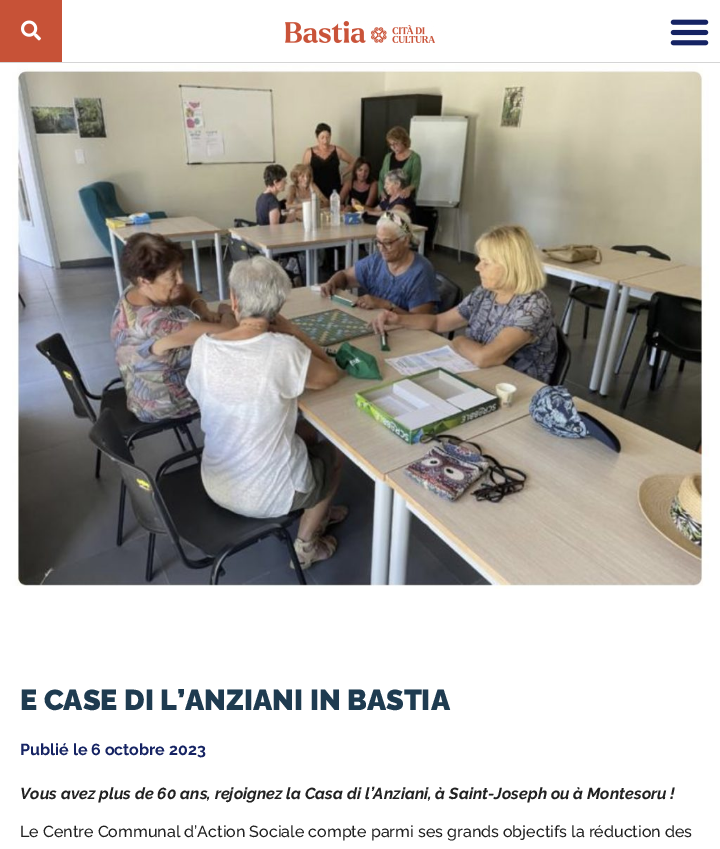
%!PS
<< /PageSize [720 849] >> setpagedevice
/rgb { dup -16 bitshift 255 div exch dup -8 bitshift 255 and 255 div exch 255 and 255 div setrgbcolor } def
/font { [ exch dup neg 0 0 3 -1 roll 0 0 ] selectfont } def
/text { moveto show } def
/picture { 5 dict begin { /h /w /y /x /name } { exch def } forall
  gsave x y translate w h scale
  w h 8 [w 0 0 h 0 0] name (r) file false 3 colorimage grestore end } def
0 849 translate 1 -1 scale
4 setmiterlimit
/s1 { /Raleway-Black 28.75 font 16#1E3B50 rgb } def
/s2 { /Raleway-Bold 16 font 16#152363 rgb } def
/s3 { /Raleway-BoldItalic 16 font 16#212121 rgb } def
/s4 { /Raleway-Medium 16 font 16#212121 rgb } def
16#FFFFFF rgb
0 0 720 849 rectfill
16#D5D5D5 rgb
0 62 720 1 rectfill
16#C75237 rgb
0 0 62 62 rectfill
(pic1.raw) 21 20 20 21 picture
(pic2.raw) 285 21 150 22 picture
(pic3.raw) 670 19 39 27 picture
(pic4.raw) 12 64 697 525 picture
s1
(E CASE DI L’ANZIANI IN BASTIA) 20 710 text
s2
(Publié le 6 octobre 2023) 20 755 text
s3
(Vous avez plus de 60 ans, rejoignez la Casa di l’Anziani, à Saint-Joseph ou à Montesoru !) 20 799 text
s4
(Le Centre Communal d’Action Sociale compte parmi ses grands objectifs la réduction des) 20 837 text
showpage
